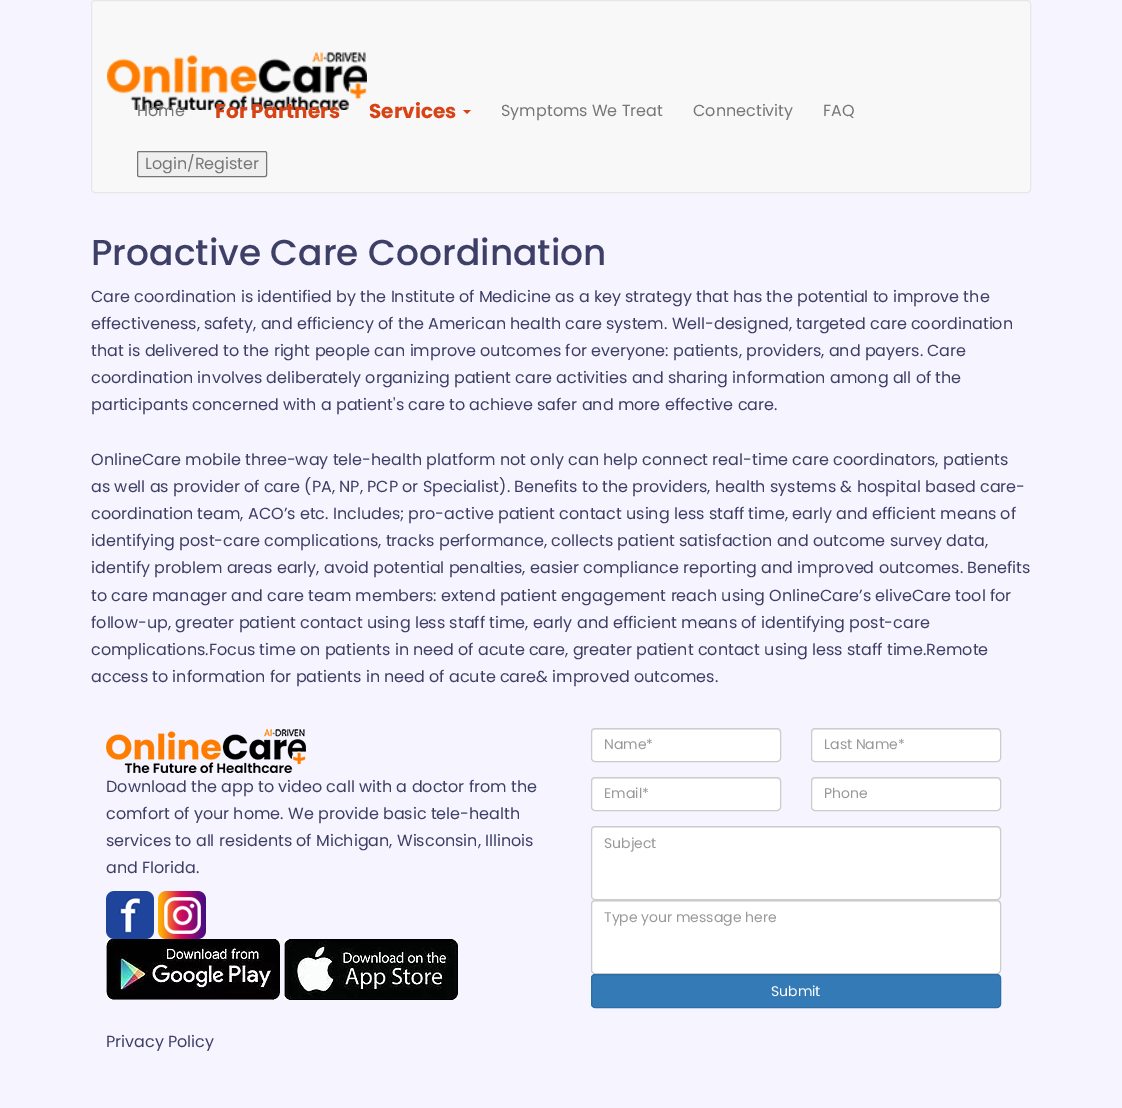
%!PS
<< /PageSize [1122 1108] >> setpagedevice
/rgb { dup -16 bitshift 255 div exch dup -8 bitshift 255 and 255 div exch 255 and 255 div setrgbcolor } def
/font { [ exch dup neg 0 0 3 -1 roll 0 0 ] selectfont } def
/text { moveto show } def
/roundrect { 5 dict begin { /r /h /w /y /x } { exch def } forall
  x r add y moveto x w add y 2 copy h add r arct x w add y h add x 1 index r arct
  x y h add x y r arct x y 2 copy exch w add exch r arct closepath end } def
/picture { 5 dict begin { /h /w /y /x /name } { exch def } forall
  gsave x y translate w h scale
  w h 8 [w 0 0 h 0 0] name (r) file false 3 colorimage grestore end } def
0 1108 translate 1 -1 scale
4 setmiterlimit
/s1 { /Poppins-Regular 16 font 16#777777 rgb } def
/s2 { /Poppins-Bold 20 font 16#D74314 rgb } def
/s3 { /Poppins-Medium 36 font 16#3E3F66 rgb } def
/s4 { /Poppins-Regular 16 font 16#3E3F66 rgb } def
/s5 { /Poppins-Regular 14 font 16#999999 rgb } def
/s6 { /Poppins-Regular 14 font 16#FFFFFF rgb } def
16#F6F4FE rgb
0 0 1122 1108 rectfill
16#F8F8F8 rgb
91.5 0.5 939 192 3.5 roundrect gsave fill grestore
16#E7E7E7 rgb
stroke
(pic1.raw) 107 52 260 58 picture
s1
(Home) 137 116 text
s2
(For Partners) 215 118 text
(Services) 369 118 text
463 110 moveto 471 110 lineto 467 114 lineto closepath fill
s1
(Symptoms We Treat) 501 116 text
(Connectivity) 693 116 text
(FAQ) 823 116 text
16#EFEFEF rgb
137.5 151.5 129 25 1.5 roundrect gsave fill grestore
16#767676 rgb
stroke
s1
(Login/Register) 145 169 text
s3
(Proactive Care Coordination) 91 265 text
s4
(Care coordination is identified by the Institute of Medicine as a key strategy that has the potential to improve the) 91 302 text
(effectiveness, safety, and efficiency of the American health care system. Well-designed, targeted care coordination) 91 329 text
(that is delivered to the right people can improve outcomes for everyone: patients, providers, and payers. Care) 91 356 text
(coordination involves deliberately organizing patient care activities and sharing information among all of the) 91 383 text
(participants concerned with a patient's care to achieve safer and more effective care.) 91 410 text
(OnlineCare mobile three-way tele-health platform not only can help connect real-time care coordinators, patients) 91 465 text
(as well as provider of care \(PA, NP, PCP or Specialist\). Benefits to the providers, health systems & hospital based care-) 91 492 text
(coordination team, ACO’s etc. Includes; pro-active patient contact using less staff time, early and efficient means of) 91 519 text
(identifying post-care complications, tracks performance, collects patient satisfaction and outcome survey data,) 91 546 text
(identify problem areas early, avoid potential penalties, easier compliance reporting and improved outcomes. Benefits) 91 573 text
(to care manager and care team members: extend patient engagement reach using OnlineCare’s eliveCare tool for) 91 601 text
(follow-up, greater patient contact using less staff time, early and efficient means of identifying post-care) 91 628 text
(complications.Focus time on patients in need of acute care, greater patient contact using less staff time.Remote) 91 655 text
(access to information for patients in need of acute care& improved outcomes.) 91 682 text
(pic2.raw) 106 729 200 44 picture
(Download the app to video call with a doctor from the) 106 792 text
(comfort of your home. We provide basic tele-health) 106 819 text
(services to all residents of Michigan, Wisconsin, Illinois) 106 846 text
(and Florida.) 106 873 text
(pic3.raw) 106 891 48 48 picture
(pic4.raw) 158 891 48 48 picture
(pic5.raw) 106 939 174 61 picture
(pic6.raw) 284 939 174 61 picture
(Privacy Policy) 106 1047 text
16#FFFFFF rgb
591 728 190 34 4 roundrect fill
16#ECECEC rgb
595 730 moveto 777 730 lineto 779 730 780 731 780 733 curveto 780 731 779 729 777 729 curveto 595 729 lineto 593 729 592 731 592 733 curveto 592 731 593 730 595 730 curveto closepath fill
16#CCCCCC rgb
591.5 728.5 189 33 3.5 roundrect stroke
s5
(Name*) 604 749 text
16#FFFFFF rgb
811 728 190 34 4 roundrect fill
16#ECECEC rgb
815 730 moveto 997 730 lineto 999 730 1000 731 1000 733 curveto 1000 731 999 729 997 729 curveto 815 729 lineto 813 729 812 731 812 733 curveto 812 731 813 730 815 730 curveto closepath fill
16#CCCCCC rgb
811.5 728.5 189 33 3.5 roundrect stroke
s5
(Last Name*) 824 749 text
16#FFFFFF rgb
591 777 190 34 4 roundrect fill
16#ECECEC rgb
595 779 moveto 777 779 lineto 779 779 780 780 780 782 curveto 780 780 779 778 777 778 curveto 595 778 lineto 593 778 592 780 592 782 curveto 592 780 593 779 595 779 curveto closepath fill
16#CCCCCC rgb
591.5 777.5 189 33 3.5 roundrect stroke
s5
(Email*) 604 798 text
16#FFFFFF rgb
811 777 190 34 4 roundrect fill
16#ECECEC rgb
815 779 moveto 997 779 lineto 999 779 1000 780 1000 782 curveto 1000 780 999 778 997 778 curveto 815 778 lineto 813 778 812 780 812 782 curveto 812 780 813 779 815 779 curveto closepath fill
16#CCCCCC rgb
811.5 777.5 189 33 3.5 roundrect stroke
s5
(Phone) 824 798 text
16#FFFFFF rgb
591 826 410 74 4 roundrect fill
16#ECECEC rgb
595 828 moveto 997 828 lineto 999 828 1000 829 1000 831 curveto 1000 829 999 827 997 827 curveto 595 827 lineto 593 827 592 829 592 831 curveto 592 829 593 828 595 828 curveto closepath fill
16#CCCCCC rgb
591.5 826.5 409 73 3.5 roundrect stroke
s5
(Subject) 604 848 text
16#FFFFFF rgb
591 900 410 74 4 roundrect fill
16#ECECEC rgb
595 902 moveto 997 902 lineto 999 902 1000 903 1000 905 curveto 1000 903 999 901 997 901 curveto 595 901 lineto 593 901 592 903 592 905 curveto 592 903 593 902 595 902 curveto closepath fill
16#CCCCCC rgb
591.5 900.5 409 73 3.5 roundrect stroke
s5
(Type your message here) 604 922 text
16#337AB7 rgb
591.5 974.5 409 33 3.5 roundrect gsave fill grestore
16#2E6DA4 rgb
stroke
s6
(Submit) 771 996 text
showpage
